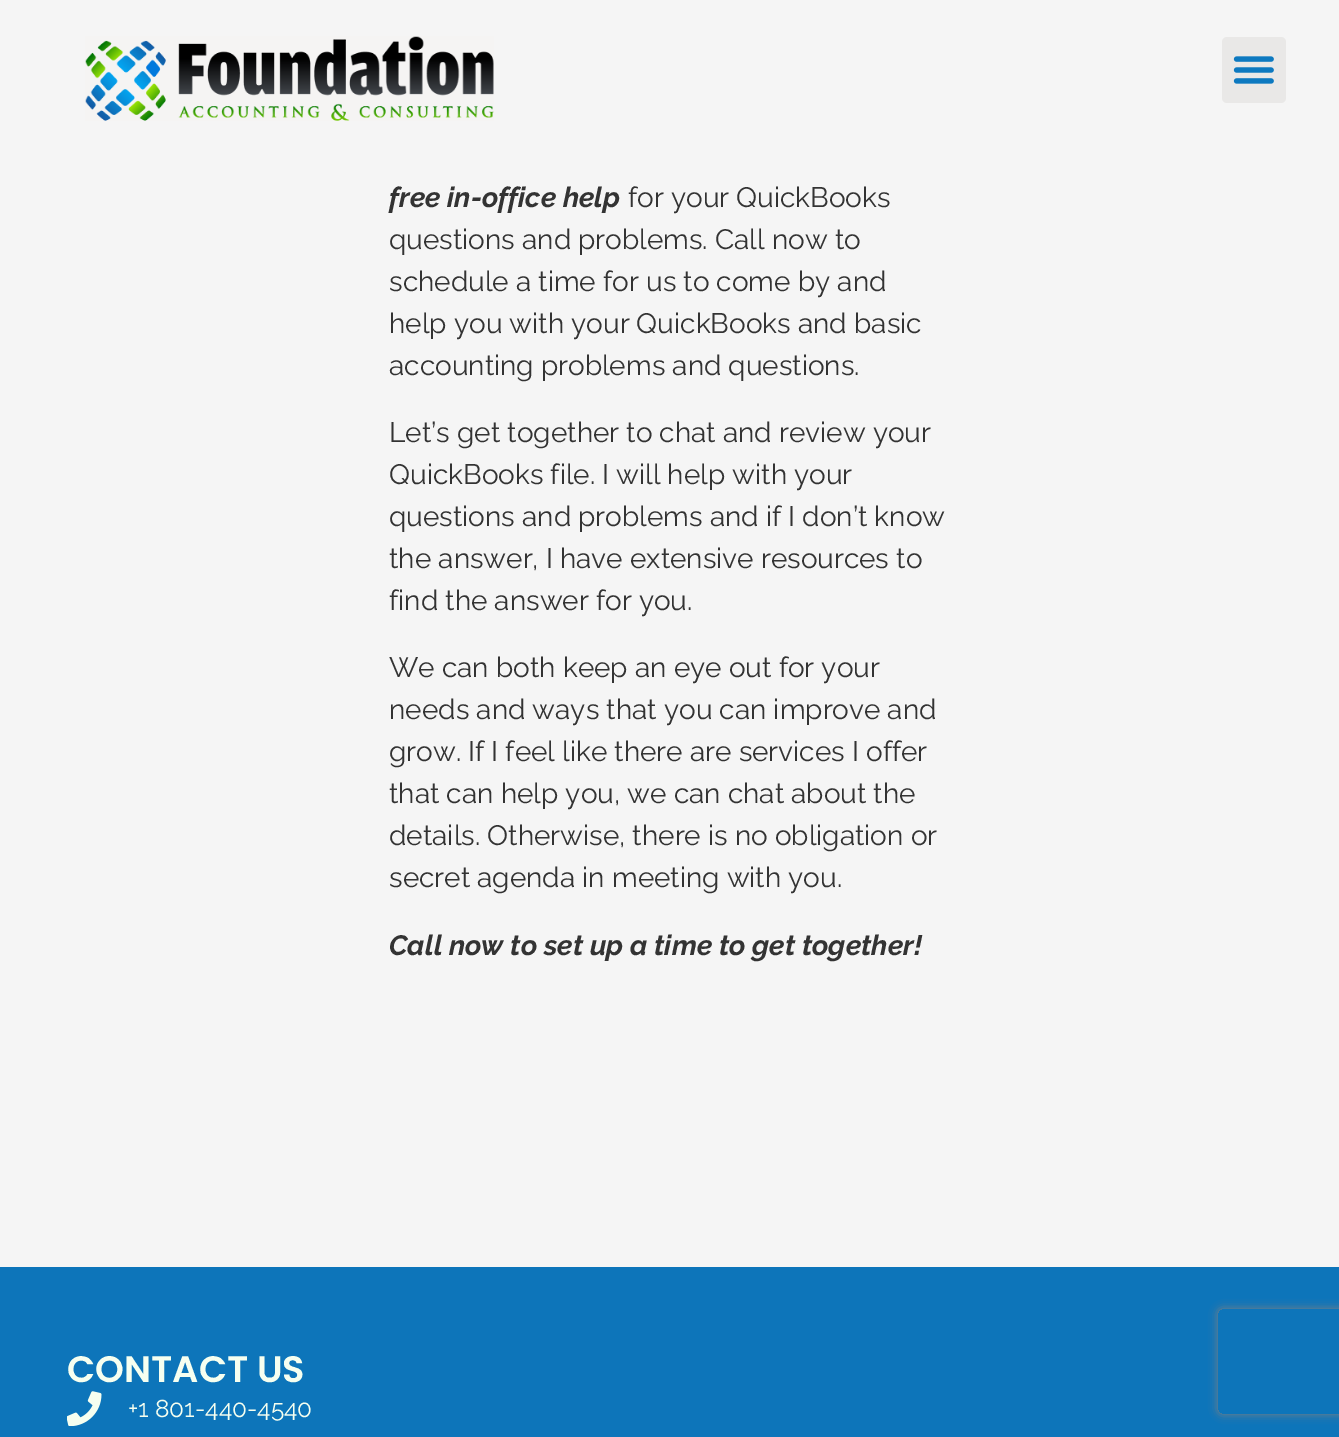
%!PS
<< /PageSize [1339 1437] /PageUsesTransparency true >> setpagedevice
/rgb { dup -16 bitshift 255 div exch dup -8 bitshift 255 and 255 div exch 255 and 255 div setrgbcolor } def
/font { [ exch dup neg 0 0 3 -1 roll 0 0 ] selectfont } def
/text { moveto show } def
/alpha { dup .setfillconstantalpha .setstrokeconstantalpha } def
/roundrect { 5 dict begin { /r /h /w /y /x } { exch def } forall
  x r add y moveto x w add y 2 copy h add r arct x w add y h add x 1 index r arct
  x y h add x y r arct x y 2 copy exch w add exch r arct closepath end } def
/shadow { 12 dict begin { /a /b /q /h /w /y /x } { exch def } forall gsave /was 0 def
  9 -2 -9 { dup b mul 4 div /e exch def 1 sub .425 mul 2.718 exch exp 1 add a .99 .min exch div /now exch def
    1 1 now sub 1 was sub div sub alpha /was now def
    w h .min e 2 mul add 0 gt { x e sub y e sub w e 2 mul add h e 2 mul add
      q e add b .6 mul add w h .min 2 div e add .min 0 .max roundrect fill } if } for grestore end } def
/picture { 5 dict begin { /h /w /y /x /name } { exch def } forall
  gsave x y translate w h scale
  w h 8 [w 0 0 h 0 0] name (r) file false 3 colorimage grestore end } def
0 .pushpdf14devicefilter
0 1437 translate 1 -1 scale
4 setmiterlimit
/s1 { /Raleway-BoldItalic 28 font 16#333333 rgb } def
/s2 { /Raleway-Regular 28 font 16#333333 rgb } def
/s3 { /Poppins-SemiBold 36.75 font 16#F6FFF0 rgb } def
/s4 { /Raleway-Regular 24.5 font 16#F6FFF0 rgb } def
16#F5F5F5 rgb
0 0 1339 1437 rectfill
(pic1.raw) 85 36 409 85 picture
16#E9E8E7 rgb
1222 37 64 66 5 roundrect fill
(pic2.raw) 1233 56 41 28 picture
s1
(free in-office help) 389 207 text
s2
(for your QuickBooks) 628 207 text
(questions and problems. Call now to) 389 249 text
(schedule a time for us to come by and) 389 291 text
(help you with your QuickBooks and basic) 389 333 text
(accounting problems and questions.) 389 375 text
(Let’s get together to chat and review your) 389 442 text
(QuickBooks file. I will help with your) 389 484 text
(questions and problems and if I don’t know) 389 526 text
(the answer, I have extensive resources to) 389 568 text
(find the answer for you.) 389 610 text
(We can both keep an eye out for your) 389 677 text
(needs and ways that you can improve and) 389 719 text
(grow. If I feel like there are services I offer) 389 761 text
(that can help you, we can chat about the) 389 803 text
(details. Otherwise, there is no obligation or) 389 845 text
(secret agenda in meeting with you.) 389 887 text
s1
(Call now to set up a time to get together!) 389 955 text
16#0D75BA rgb
0 1267 1339 170 rectfill
s3
(CONTACT US) 67 1382 text
(pic3.raw) 67 1391 35 35 picture
s4
(+1 801-440-4540) 128 1417 text
gsave
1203 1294 moveto 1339 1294 lineto 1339 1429 lineto 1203 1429 lineto closepath 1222 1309 moveto 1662 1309 lineto 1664 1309 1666 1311 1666 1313 curveto 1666 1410 lineto 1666 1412 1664 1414 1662 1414 curveto 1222 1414 lineto 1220 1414 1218 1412 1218 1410 curveto 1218 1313 lineto 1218 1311 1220 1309 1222 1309 curveto closepath eoclip newpath
16#808080 rgb
1218 1309 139 105 4 4.5 1 shadow
grestore
.poppdf14devicefilter showpage
